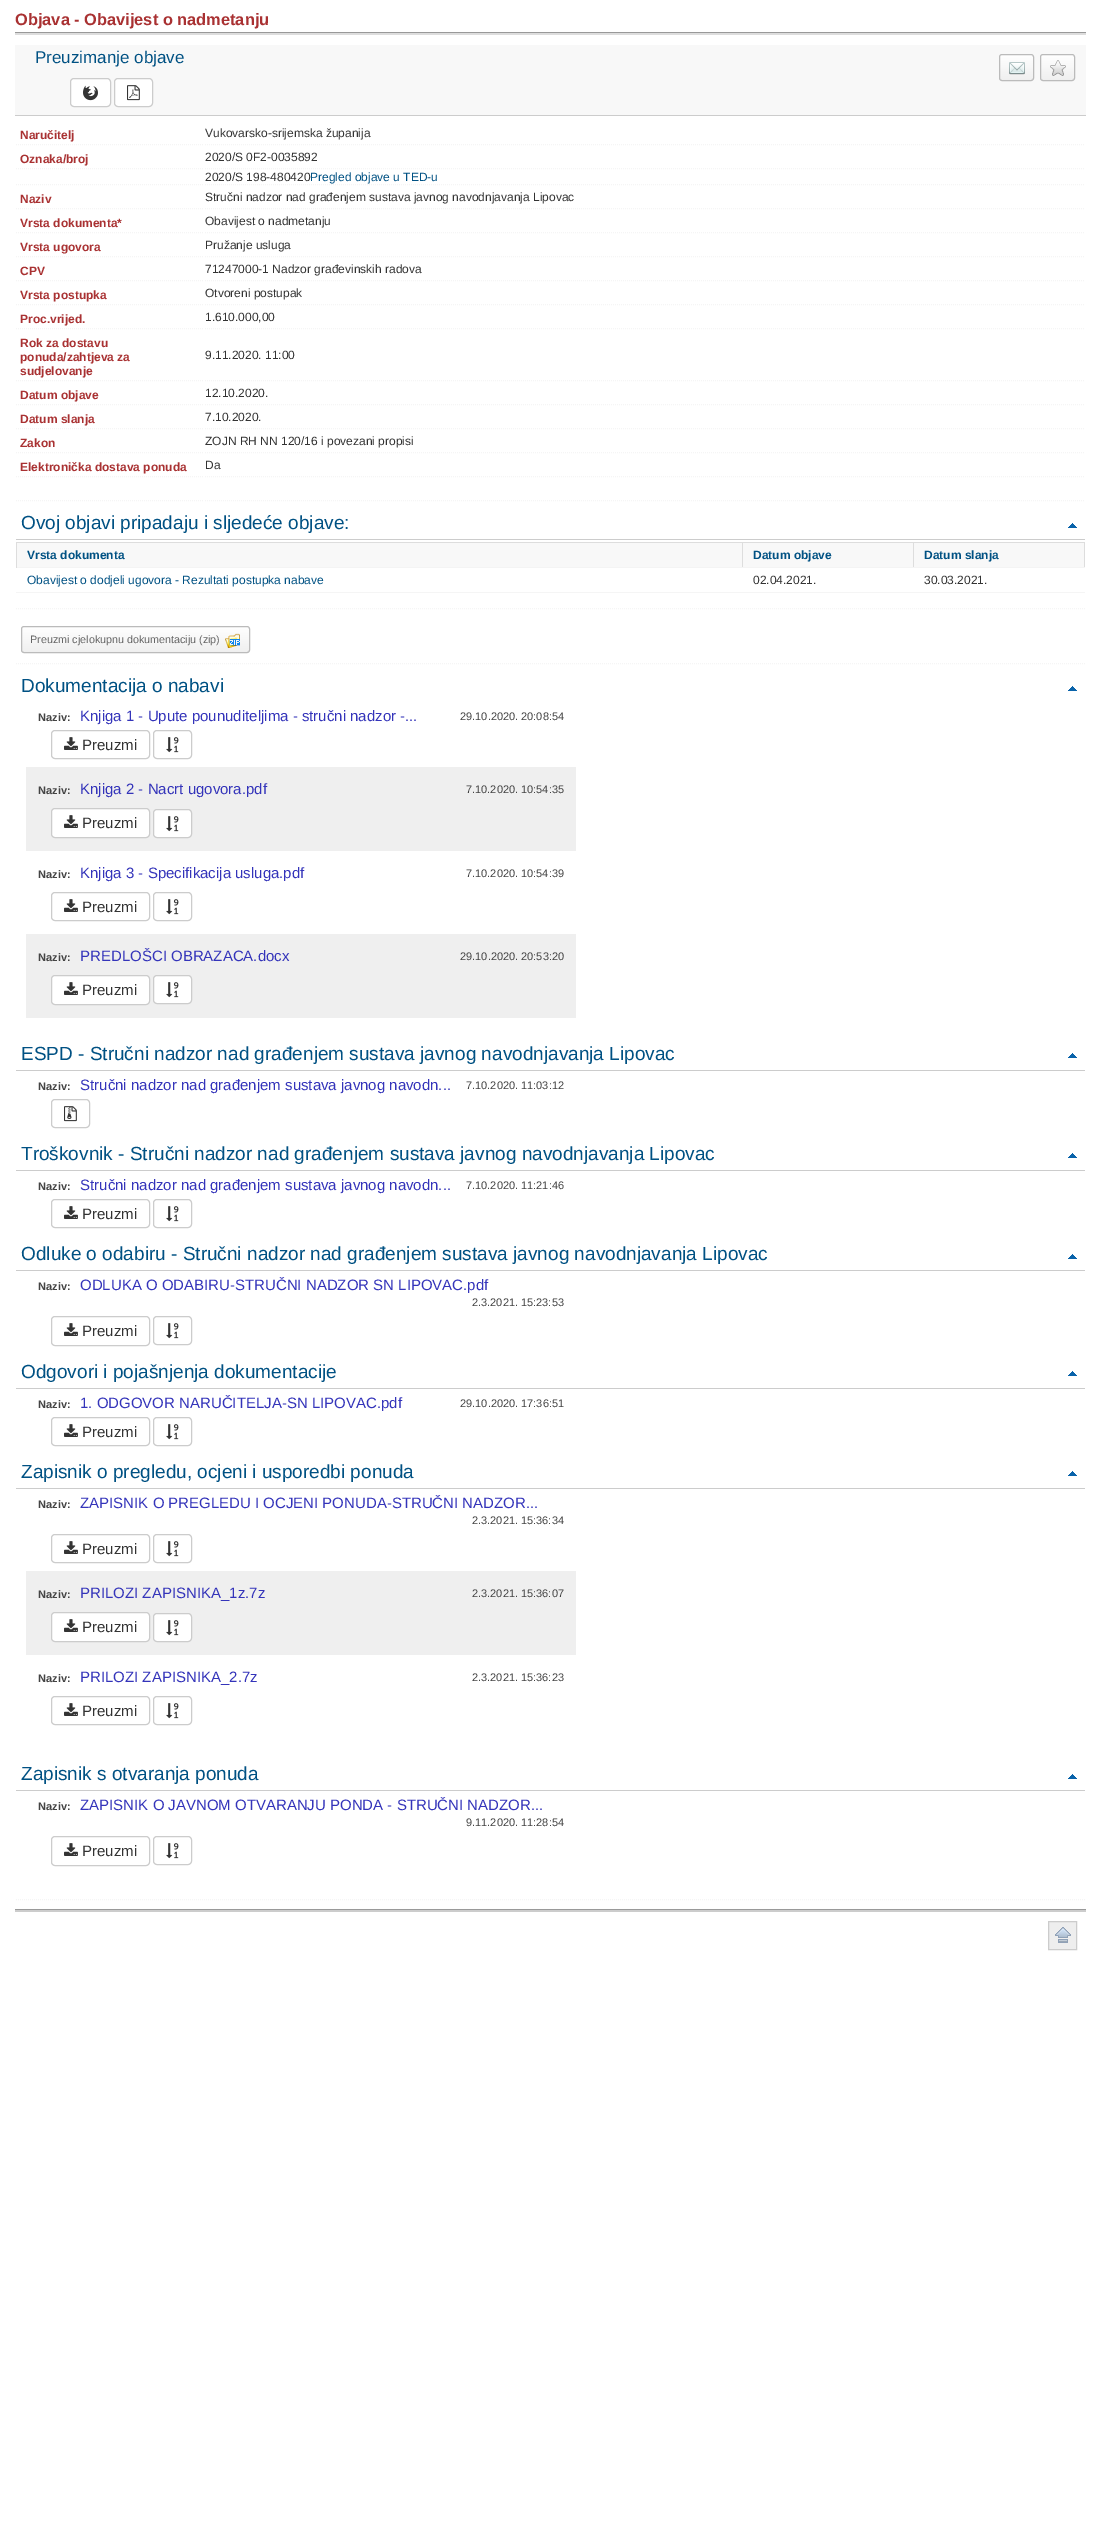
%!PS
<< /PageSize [1101 2545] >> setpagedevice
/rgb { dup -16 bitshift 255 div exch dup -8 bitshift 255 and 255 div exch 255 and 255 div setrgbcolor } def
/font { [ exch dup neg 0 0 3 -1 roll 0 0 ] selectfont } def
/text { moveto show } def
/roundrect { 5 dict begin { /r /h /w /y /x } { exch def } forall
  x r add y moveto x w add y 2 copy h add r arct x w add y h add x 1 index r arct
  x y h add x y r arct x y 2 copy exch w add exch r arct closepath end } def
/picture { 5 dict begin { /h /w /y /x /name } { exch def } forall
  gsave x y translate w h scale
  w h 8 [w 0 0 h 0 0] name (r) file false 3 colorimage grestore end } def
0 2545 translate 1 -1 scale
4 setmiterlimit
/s1 { /LiberationSans-Bold 16.4 font 16#A93132 rgb } def
/s2 { /LiberationSans-Regular 17 font 16#005183 rgb } def
/s3 { /LiberationSans-Bold 12 font 16#A93132 rgb } def
/s4 { /LiberationSans-Regular 12 font 16#333333 rgb } def
/s5 { /LiberationSans-Regular 12 font 16#005183 rgb } def
/s6 { /LiberationSans-Regular 19 font 16#005183 rgb } def
/s7 { /LiberationSans-Bold 12 font 16#005183 rgb } def
/s8 { /LiberationSans-Regular 10.75 font 16#666666 rgb } def
/s9 { /LiberationSans-Bold 11 font 16#444444 rgb } def
/s10 { /LiberationSans-Regular 15 font 16#3434BA rgb } def
/s11 { /LiberationSans-Regular 11 font 16#444444 rgb } def
/s12 { /LiberationSans-Regular 15 font 16#333333 rgb } def
16#FFFFFF rgb
0 0 1101 2545 rectfill
16#DDDDDD rgb
15 33 1071 2 rectfill
16#999999 rgb
15 32 1071 1 rectfill
s1
(Objava - Obavijest o nadmetanju) 15 25 text
16#F8F8F8 rgb
15 45 1071 70 rectfill
16#CCCCCC rgb
15 115 1071 1 rectfill
s2
(Preuzimanje objave) 35 63 text
16#FFFFFF rgb
70.5 78.5 40 28 3.5 roundrect gsave fill grestore
16#CCCCCC rgb
stroke
(pic1.raw) 83 85 15 16 picture
16#FFFFFF rgb
114.5 78.5 38 28 3.5 roundrect gsave fill grestore
16#CCCCCC rgb
stroke
(pic2.raw) 127 85 13 16 picture
(pic3.raw) 999 55 35 26 picture
16#BBBBBB rgb
999.5 54.5 34 26 2.5 roundrect stroke
(pic4.raw) 1009 62 16 13 picture
(pic3.raw) 1040 55 35 26 picture
1040.5 54.5 34 26 2.5 roundrect stroke
(pic5.raw) 1050 60 16 16 picture
16#F5F5F5 rgb
[1 1] 0 setdash
16 144.5 moveto 204 144.5 lineto stroke
s3
(Naručitelj) 20 139 text
16#F5F5F5 rgb
205 144.5 moveto 1085 144.5 lineto stroke
s4
(Vukovarsko-srijemska županija) 205 137 text
16#F5F5F5 rgb
16 168.5 moveto 204 168.5 lineto stroke
s3
(Oznaka/broj) 20 163 text
16#F5F5F5 rgb
205 168.5 moveto 1085 168.5 lineto stroke
s4
(2020/S 0F2-0035892) 205 161 text
16#F5F5F5 rgb
205 184.5 moveto 1085 184.5 lineto stroke
s4
(2020/S 198-480420) 205 181 text
s5
(Pregled objave u TED-u) 310 181 text
16#F5F5F5 rgb
16 184.5 moveto 204 184.5 lineto stroke
16 208.5 moveto 204 208.5 lineto stroke
s3
(Naziv) 20 203 text
16#F5F5F5 rgb
205 208.5 moveto 1085 208.5 lineto stroke
s4
(Stručni nadzor nad građenjem sustava javnog navodnjavanja Lipovac) 205 201 text
16#F5F5F5 rgb
16 232.5 moveto 204 232.5 lineto stroke
s3
(Vrsta dokumenta*) 20 227 text
16#F5F5F5 rgb
205 232.5 moveto 1085 232.5 lineto stroke
s4
(Obavijest o nadmetanju) 205 225 text
16#F5F5F5 rgb
16 256.5 moveto 204 256.5 lineto stroke
s3
(Vrsta ugovora) 20 251 text
16#F5F5F5 rgb
205 256.5 moveto 1085 256.5 lineto stroke
s4
(Pružanje usluga) 205 249 text
16#F5F5F5 rgb
16 280.5 moveto 204 280.5 lineto stroke
s3
(CPV) 20 275 text
16#F5F5F5 rgb
205 280.5 moveto 1085 280.5 lineto stroke
s4
(71247000-1 Nadzor građevinskih radova) 205 273 text
16#F5F5F5 rgb
16 304.5 moveto 204 304.5 lineto stroke
s3
(Vrsta postupka) 20 299 text
16#F5F5F5 rgb
205 304.5 moveto 1085 304.5 lineto stroke
s4
(Otvoreni postupak) 205 297 text
16#F5F5F5 rgb
16 328.5 moveto 204 328.5 lineto stroke
s3
(Proc.vrijed.) 20 323 text
16#F5F5F5 rgb
205 328.5 moveto 1085 328.5 lineto stroke
s4
(1.610.000,00) 205 321 text
16#F5F5F5 rgb
16 380.5 moveto 204 380.5 lineto stroke
s3
(Rok za dostavu) 20 347 text
(ponuda/zahtjeva za) 20 361 text
(sudjelovanje) 20 375 text
16#F5F5F5 rgb
205 380.5 moveto 1085 380.5 lineto stroke
s4
(9.11.2020. 11:00) 205 359 text
16#F5F5F5 rgb
16 404.5 moveto 204 404.5 lineto stroke
s3
(Datum objave) 20 399 text
16#F5F5F5 rgb
205 404.5 moveto 1085 404.5 lineto stroke
s4
(12.10.2020.) 205 397 text
16#F5F5F5 rgb
16 428.5 moveto 204 428.5 lineto stroke
s3
(Datum slanja) 20 423 text
16#F5F5F5 rgb
205 428.5 moveto 1085 428.5 lineto stroke
s4
(7.10.2020.) 205 421 text
16#F5F5F5 rgb
16 452.5 moveto 204 452.5 lineto stroke
s3
(Zakon) 20 447 text
16#F5F5F5 rgb
205 452.5 moveto 1085 452.5 lineto stroke
s4
(ZOJN RH NN 120/16 i povezani propisi) 205 445 text
16#F5F5F5 rgb
16 476.5 moveto 204 476.5 lineto stroke
s3
(Elektronička dostava ponuda) 20 471 text
16#F5F5F5 rgb
205 476.5 moveto 1085 476.5 lineto stroke
s4
(Da) 205 469 text
16#F5F5F5 rgb
16 500.5 moveto 204 500.5 lineto stroke
205 500.5 moveto 1085 500.5 lineto stroke
16 608.5 moveto 1085 608.5 lineto stroke
16#CCCCCC rgb
16 539 1069 1 rectfill
s6
(Ovoj objavi pripadaju i sljedeće objave:) 21 529 text
(pic6.raw) 1068 523 9 5 picture
16#F8F8F8 rgb
17 543 1067 24 rectfill
16#DDDDDD rgb
913 542 172 1 rectfill
1084 542 1 26 rectfill
16#F4F4F4 rgb
913 567 172 1 rectfill
16#DDDDDD rgb
913 542 1 26 rectfill
742 542 172 1 rectfill
16#F4F4F4 rgb
742 567 172 1 rectfill
16#DDDDDD rgb
742 542 1 26 rectfill
16 542 727 1 rectfill
16#F4F4F4 rgb
16 567 727 1 rectfill
16#DDDDDD rgb
16 542 1 26 rectfill
s7
(Vrsta dokumenta) 27 559 text
(Datum objave) 753 559 text
(Datum slanja) 924 559 text
s5
(Obavijest o dodjeli ugovora - Rezultati postupka nabave) 27 584 text
s4
(02.04.2021.) 753 584 text
16#F5F5F5 rgb
16 592 1069 1 rectfill
s4
(30.03.2021.) 924 584 text
16#F5F5F5 rgb
16 663.5 moveto 1085 663.5 lineto stroke
(pic7.raw) 21 627 229 26 picture
16#BBBBBB rgb
[] 0 setdash
21.5 626.5 228 26 2.5 roundrect stroke
(pic8.raw) 225 633 15 15 picture
s8
(Preuzmi cjelokupnu dokumentaciju \(zip\)) 30 643 text
16#F5F5F5 rgb
[1 1] 0 setdash
16 1899.5 moveto 1085 1899.5 lineto stroke
s6
(Dokumentacija o nabavi) 21 692 text
(pic6.raw) 1068 686 9 5 picture
s9
(Naziv:) 38 721 text
s10
(Knjiga 1 - Upute pounuditeljima - stručni nadzor -...) 80 721 text
s11
(29.10.2020. 20:08:54) 460 720 text
16#CCCCCC rgb
[] 0 setdash
51.5 730.5 98 28 3.5 roundrect stroke
(pic9.raw) 64 737 14 13 picture
s12
(Preuzmi) 82 750 text
16#CCCCCC rgb
153.5 730.5 38 28 3.5 roundrect stroke
(pic10.raw) 166 737 13 16 picture
16#EFEFEF rgb
26 767 550 84 rectfill
s9
(Naziv:) 38 794 text
s10
(Knjiga 2 - Nacrt ugovora.pdf) 80 794 text
s11
(7.10.2020. 10:54:35) 466 793 text
16#FFFFFF rgb
51.5 808.5 98 29 3.5 roundrect gsave fill grestore
16#CCCCCC rgb
stroke
(pic9.raw) 64 815 14 13 picture
s12
(Preuzmi) 82 828 text
16#FFFFFF rgb
153.5 809.5 38 28 3.5 roundrect gsave fill grestore
16#CCCCCC rgb
stroke
(pic10.raw) 166 816 13 16 picture
s9
(Naziv:) 38 878 text
s10
(Knjiga 3 - Specifikacija usluga.pdf) 80 878 text
s11
(7.10.2020. 10:54:39) 466 877 text
16#CCCCCC rgb
51.5 892.5 98 28 3.5 roundrect stroke
(pic9.raw) 64 899 14 13 picture
s12
(Preuzmi) 82 912 text
16#CCCCCC rgb
153.5 892.5 38 28 3.5 roundrect stroke
(pic10.raw) 166 899 13 16 picture
16#EFEFEF rgb
26 934 550 84 rectfill
s9
(Naziv:) 38 961 text
s10
(PREDLOŠCI OBRAZACA.docx) 80 961 text
s11
(29.10.2020. 20:53:20) 460 960 text
16#FFFFFF rgb
51.5 975.5 98 29 3.5 roundrect gsave fill grestore
16#CCCCCC rgb
stroke
(pic9.raw) 64 982 14 13 picture
s12
(Preuzmi) 82 995 text
16#FFFFFF rgb
153.5 975.5 38 28 3.5 roundrect gsave fill grestore
16#CCCCCC rgb
stroke
(pic10.raw) 166 982 13 16 picture
16 1070 1069 1 rectfill
s6
(ESPD - Stručni nadzor nad građenjem sustava javnog navodnjavanja Lipovac) 21 1060 text
(pic6.raw) 1068 1053 9 5 picture
s9
(Naziv:) 38 1090 text
s10
(Stručni nadzor nad građenjem sustava javnog navodn...) 80 1090 text
s11
(7.10.2020. 11:03:12) 466 1089 text
16#CCCCCC rgb
51.5 1099.5 38 28 3.5 roundrect stroke
(pic11.raw) 64 1106 13 16 picture
16 1170 1069 1 rectfill
s6
(Troškovnik - Stručni nadzor nad građenjem sustava javnog navodnjavanja Lipovac) 21 1160 text
(pic6.raw) 1068 1153 9 5 picture
s9
(Naziv:) 38 1190 text
s10
(Stručni nadzor nad građenjem sustava javnog navodn...) 80 1190 text
s11
(7.10.2020. 11:21:46) 466 1189 text
16#CCCCCC rgb
51.5 1199.5 98 28 3.5 roundrect stroke
(pic9.raw) 64 1206 14 13 picture
s12
(Preuzmi) 82 1219 text
16#CCCCCC rgb
153.5 1199.5 38 28 3.5 roundrect stroke
(pic10.raw) 166 1206 13 16 picture
16 1270 1069 1 rectfill
s6
(Odluke o odabiru - Stručni nadzor nad građenjem sustava javnog navodnjavanja Lipovac) 21 1260 text
(pic6.raw) 1068 1254 9 5 picture
s9
(Naziv:) 38 1290 text
s10
(ODLUKA O ODABIRU-STRUČNI NADZOR SN LIPOVAC.pdf) 80 1290 text
s11
(2.3.2021. 15:23:53) 472 1306 text
16#CCCCCC rgb
51.5 1316.5 98 29 3.5 roundrect stroke
(pic9.raw) 64 1323 14 13 picture
s12
(Preuzmi) 82 1336 text
16#CCCCCC rgb
153.5 1316.5 38 28 3.5 roundrect stroke
(pic10.raw) 166 1323 13 16 picture
16 1388 1069 1 rectfill
s6
(Odgovori i pojašnjenja dokumentacije) 21 1378 text
(pic6.raw) 1068 1371 9 5 picture
s9
(Naziv:) 38 1408 text
s10
(1. ODGOVOR NARUČITELJA-SN LIPOVAC.pdf) 80 1408 text
s11
(29.10.2020. 17:36:51) 460 1407 text
16#CCCCCC rgb
51.5 1417.5 98 28 3.5 roundrect stroke
(pic9.raw) 64 1424 14 13 picture
s12
(Preuzmi) 82 1437 text
16#CCCCCC rgb
153.5 1417.5 38 28 3.5 roundrect stroke
(pic10.raw) 166 1424 13 16 picture
16 1488 1069 1 rectfill
s6
(Zapisnik o pregledu, ocjeni i usporedbi ponuda) 21 1478 text
(pic6.raw) 1068 1471 9 5 picture
s9
(Naziv:) 38 1508 text
s10
(ZAPISNIK O PREGLEDU I OCJENI PONUDA-STRUČNI NADZOR...) 80 1508 text
s11
(2.3.2021. 15:36:34) 472 1524 text
16#CCCCCC rgb
51.5 1534.5 98 28 3.5 roundrect stroke
(pic9.raw) 64 1541 14 13 picture
s12
(Preuzmi) 82 1554 text
16#CCCCCC rgb
153.5 1534.5 38 28 3.5 roundrect stroke
(pic10.raw) 166 1541 13 16 picture
16#EFEFEF rgb
26 1571 550 84 rectfill
s9
(Naziv:) 38 1598 text
s10
(PRILOZI ZAPISNIKA_1z.7z) 80 1598 text
s11
(2.3.2021. 15:36:07) 472 1597 text
16#FFFFFF rgb
51.5 1612.5 98 29 3.5 roundrect gsave fill grestore
16#CCCCCC rgb
stroke
(pic9.raw) 64 1619 14 13 picture
s12
(Preuzmi) 82 1632 text
16#FFFFFF rgb
153.5 1613.5 38 28 3.5 roundrect gsave fill grestore
16#CCCCCC rgb
stroke
(pic10.raw) 166 1620 13 16 picture
s9
(Naziv:) 38 1682 text
s10
(PRILOZI ZAPISNIKA_2.7z) 80 1682 text
s11
(2.3.2021. 15:36:23) 472 1681 text
16#CCCCCC rgb
51.5 1696.5 98 28 3.5 roundrect stroke
(pic9.raw) 64 1703 14 13 picture
s12
(Preuzmi) 82 1716 text
16#CCCCCC rgb
153.5 1696.5 38 28 3.5 roundrect stroke
(pic10.raw) 166 1703 13 16 picture
16 1790 1069 1 rectfill
s6
(Zapisnik s otvaranja ponuda) 21 1780 text
(pic6.raw) 1068 1774 9 5 picture
s9
(Naziv:) 38 1810 text
s10
(ZAPISNIK O JAVNOM OTVARANJU PONDA - STRUČNI NADZOR...) 80 1810 text
s11
(9.11.2020. 11:28:54) 466 1826 text
16#CCCCCC rgb
51.5 1836.5 98 29 3.5 roundrect stroke
(pic9.raw) 64 1843 14 13 picture
s12
(Preuzmi) 82 1856 text
16#CCCCCC rgb
153.5 1836.5 38 28 3.5 roundrect stroke
(pic10.raw) 166 1843 13 16 picture
16#999999 rgb
15 1909 1071 1 rectfill
16#CCCCCC rgb
15 1910 1071 2 rectfill
16#EEEEEE rgb
1049 1922 27 27 rectfill
(pic12.raw) 1055 1927 16 16 picture
16#CCCCCC rgb
1048.5 1921.5 28 28 rectstroke
showpage
